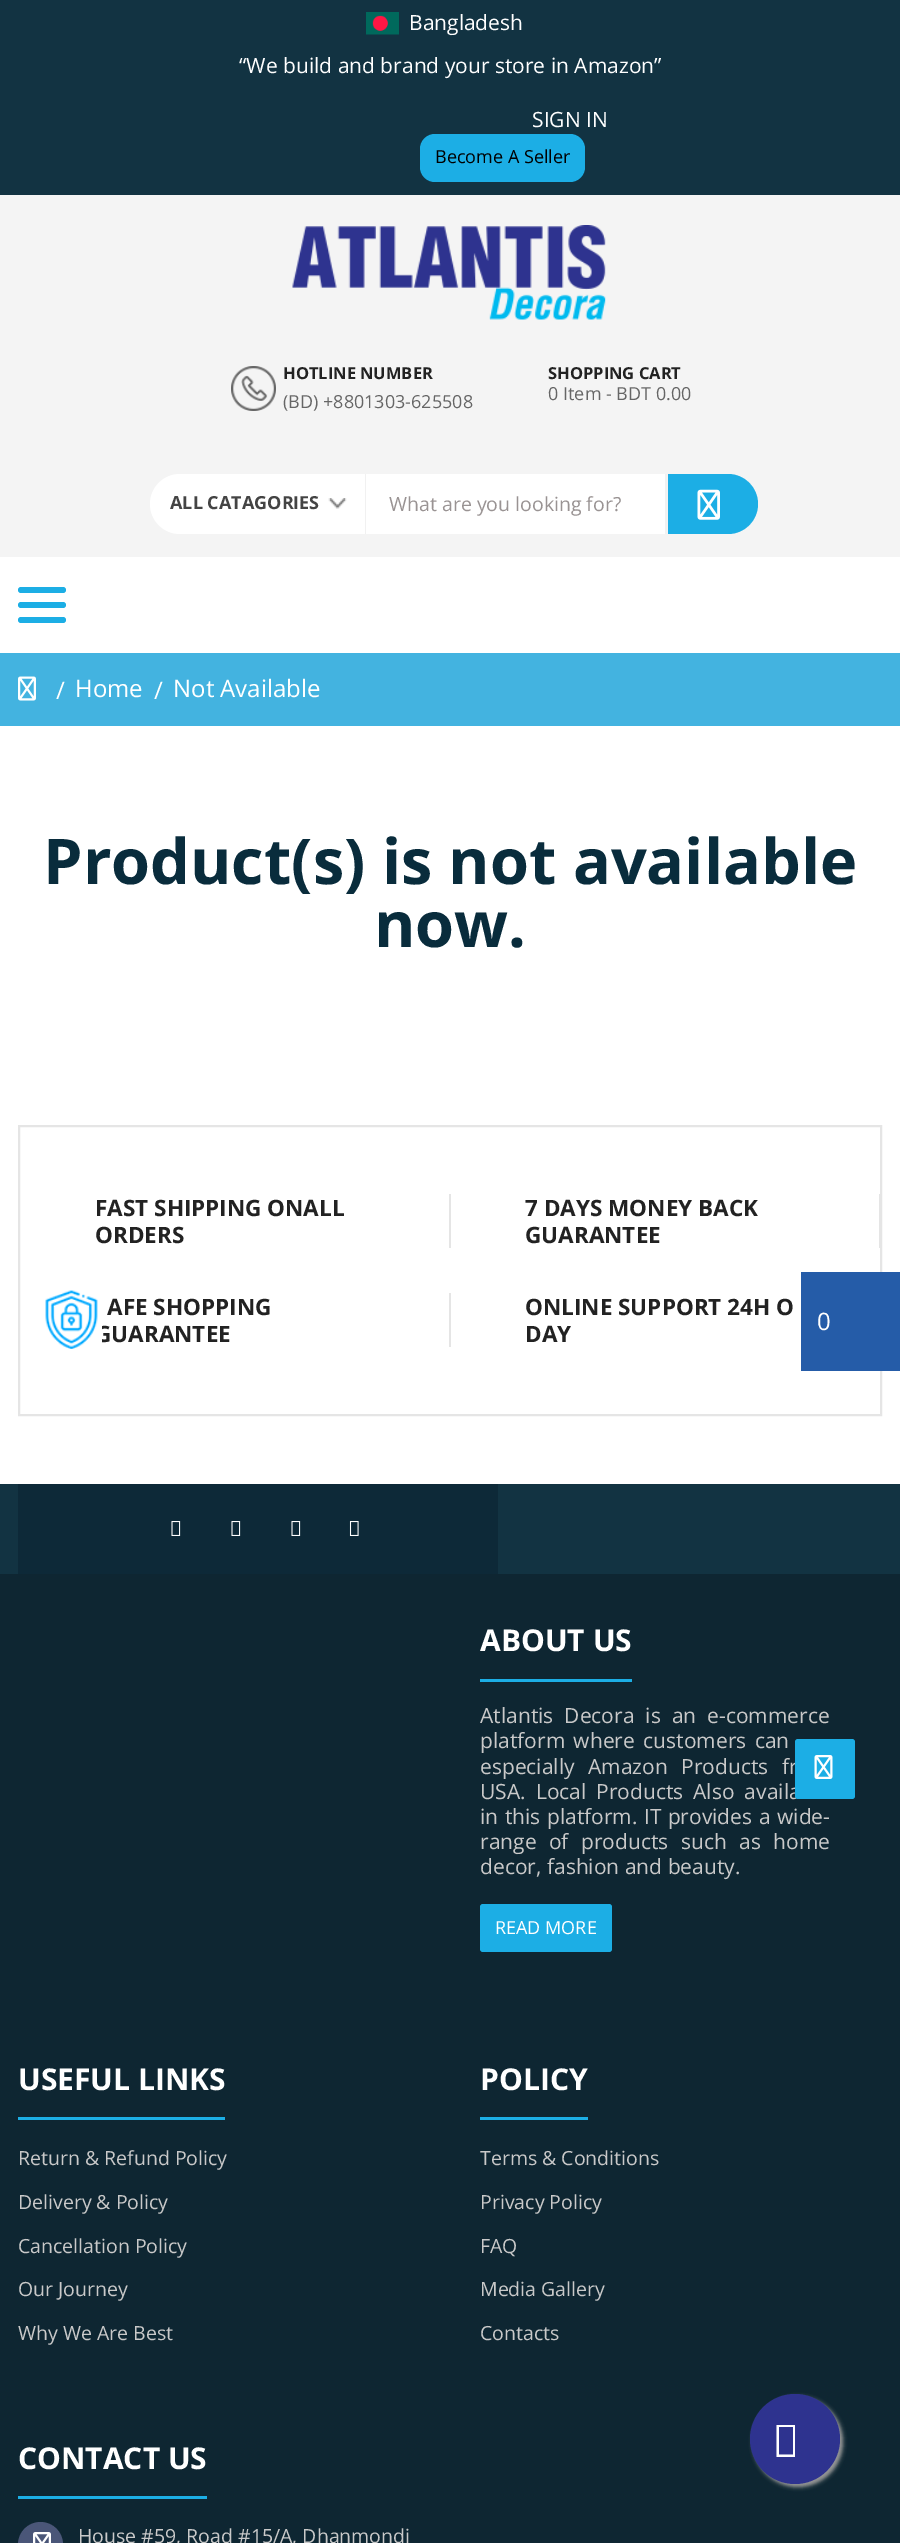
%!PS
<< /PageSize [900 2543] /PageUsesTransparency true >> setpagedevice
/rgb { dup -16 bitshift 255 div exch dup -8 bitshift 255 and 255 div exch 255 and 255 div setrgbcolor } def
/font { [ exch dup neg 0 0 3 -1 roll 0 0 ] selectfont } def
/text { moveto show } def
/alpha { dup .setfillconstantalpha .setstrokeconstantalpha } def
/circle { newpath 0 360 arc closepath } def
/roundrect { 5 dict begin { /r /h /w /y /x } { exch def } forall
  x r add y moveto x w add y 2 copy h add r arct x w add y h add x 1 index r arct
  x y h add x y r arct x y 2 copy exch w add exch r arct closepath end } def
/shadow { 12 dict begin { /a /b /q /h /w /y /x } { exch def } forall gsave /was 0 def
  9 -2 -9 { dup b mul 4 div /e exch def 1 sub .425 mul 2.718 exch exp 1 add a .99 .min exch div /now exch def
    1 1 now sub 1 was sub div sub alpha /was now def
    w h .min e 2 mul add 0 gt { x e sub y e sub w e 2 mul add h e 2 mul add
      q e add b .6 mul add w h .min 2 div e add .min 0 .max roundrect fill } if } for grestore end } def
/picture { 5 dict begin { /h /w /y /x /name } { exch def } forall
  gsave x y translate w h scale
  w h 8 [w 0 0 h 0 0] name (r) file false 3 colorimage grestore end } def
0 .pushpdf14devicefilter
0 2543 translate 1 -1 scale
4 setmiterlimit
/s1 { /OpenSans-Regular 21 font 16#FFFFFF rgb } def
/s2 { /OpenSans-Regular 18 font 16#000000 rgb } def
/s3 { /OpenSans-Bold 16.5 font 16#222222 rgb } def
/s4 { /OpenSans-Regular 18 font 16#666666 rgb } def
/s5 { /OpenSans-Bold 18 font 16#444444 rgb } def
/s6 { /OpenSans-Regular 19.5 font 16#999393 rgb } def
/s7 { /OpenSans-Regular 24 font 16#FFFFFF rgb } def
/s8 { /OpenSans-Bold 63 font 16#092C3C rgb } def
/s9 { /OpenSans-Bold 22.5 font 16#222222 rgb } def
/s10 { /OpenSans-Bold 30 font 16#FFFFFF rgb } def
/s11 { /OpenSans-Regular 21 font 16#C9C9C9 rgb } def
/s12 { /OpenSans-Regular 18 font 16#FFFFFF rgb } def
/s13 { /OpenSans-Regular 19.5 font 16#C9C9C9 rgb } def
16#FFFFFF rgb
0 0 900 2543 rectfill
16#123342 rgb
0 0 900 195 rectfill
(pic1.raw) 366 12 33 23 picture
s1
(Bangladesh) 409 30 text
(“We build and brand your store in Amazon”) 239 73 text
(SIGN IN) 532 127 text
16#1CAEE5 rgb
420 134 165 48 15 roundrect fill
s2
(Become A Seller) 435 163 text
16#F4F4F4 rgb
0 195 900 362 rectfill
(pic2.raw) 292 225 314 95 picture
(pic3.raw) 231 366 45 45 picture
s3
(HOTLINE NUMBER) 283 379 text
s4
(\(BD\) +8801303-625508) 283 408 text
s3
(SHOPPING CART) 548 379 text
s4
(0 Item - BDT 0.00) 548 400 text
16#FFFFFF rgb
180 474 moveto 366 474 lineto 366 534 lineto 180 534 lineto 163.5 534 150 520.5 150 504 curveto 150 487.5 163.5 474 180 474 curveto closepath fill
(pic4.raw) 328 498 19 11 picture
16#F1F1F1 rgb
365 474 1 60 rectfill
s5
(ALL CATAGORIES) 170 509 text
16#FFFFFF rgb
366 474 299 60 rectfill
16#F1F1F1 rgb
665 474 2 60 rectfill
s6
(What are you looking for?) 389 511 text
16#1CAEE5 rgb
668 474 moveto 728 474 lineto 744.5 474 758 487.5 758 504 curveto 758 520.5 744.5 534 728 534 curveto 668 534 lineto closepath fill
(pic5.raw) 697 489 23 31 picture
18 587 48 6 3 roundrect fill
18 602 48 6 3 roundrect fill
18 617 48 6 3 roundrect fill
16#43B3E0 rgb
0 653 900 73 rectfill
(pic6.raw) 18 676 18 25 picture
s7
(/) 56 699 text
(Home) 75 697 text
(/) 154 699 text
(Not Available) 173 697 text
s8
(Product\(s\) is not available) 43 884 text
(now.) 374 947 text
16#E5E5E5 rgb
2 setlinewidth
19 1126 862 289 rectstroke
449 1194 2 54 rectfill
s9
(FAST SHIPPING ONALL) 95 1216 text
(ORDERS) 95 1243 text
16#E5E5E5 rgb
879 1194 1 54 rectfill
s9
(7 DAYS MONEY BACK) 525 1216 text
(GUARANTEE) 525 1243 text
16#E5E5E5 rgb
449 1293 2 54 rectfill
s9
(GUARANTEE) 95 1342 text
(pic7.raw) 45 1290 57 59 picture
(AFE SHOPPING) 107 1315 text
(ONLINE SUPPORT 24H O) 525 1315 text
(DAY) 525 1342 text
16#255CA8 rgb
801 1272 99 99 rectfill
s7
(0) 817 1330 text
16#123342 rgb
0 1484 900 90 rectfill
16#0D2938 rgb
18 1484 480 90 rectfill
(pic8.raw) 171 1521 10 15 picture
(pic8.raw) 231 1521 10 15 picture
(pic8.raw) 291 1521 10 15 picture
(pic9.raw) 349 1521 10 15 picture
16#0E2632 rgb
0 1574 900 969 rectfill
16#1CAEE5 rgb
480 1679 152 3 rectfill
s10
(ABOUT US) 480 1651 text
/OpenSans-Regular 21 font
16#C9C9C9 rgb
480 1723 moveto 5.5 0 32 (Atlantis Decora is an e-commerce) widthshow
480 1748 moveto 3 0 32 (platform where customers can) widthshow
480 1774 moveto 8 0 32 (especially Amazon) widthshow
681 1774 moveto 8 0 32 (Products fr) widthshow
480 1799 moveto 4.5 0 32 (USA. Local Products Also availa) widthshow
480 1824 moveto 1 0 32 (in this platform. IT provides a) widthshow
(wide-) 777 1824 text
480 1849 moveto 7 0 32 (range of products such as home) widthshow
(decor, fashion and beauty.) 480 1874 text
16#1CAEE5 rgb
480 1904 132 48 3 roundrect fill
s12
(READ MORE) 495 1934 text
16#1CAEE5 rgb
18 2117 207 3 rectfill
s10
(USEFUL LINKS) 18 2090 text
s13
(Return & Refund Policy) 18 2165 text
(Delivery & Policy) 18 2209 text
(Cancellation Policy) 18 2253 text
(Our Journey) 18 2296 text
(Why We Are Best) 18 2340 text
16#1CAEE5 rgb
480 2117 108 3 rectfill
s10
(POLICY) 480 2090 text
s13
(Terms & Conditions) 480 2165 text
(Privacy Policy) 480 2209 text
(FAQ) 480 2253 text
(Media Gallery) 480 2296 text
(Contacts) 480 2340 text
16#1CAEE5 rgb
18 2496 189 3 rectfill
s10
(CONTACT US) 18 2469 text
16#4A5678 rgb
18 2522 45 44 22.5 roundrect fill
(pic10.raw) 33 2532 18 11 picture
s13
(House #59, Road #15/A, Dhanmondi) 78 2543 text
16#1CAEE5 rgb
795 1739 60 60 3 roundrect fill
(pic11.raw) 814 1755 19 24 picture
16#999999 rgb
753 2397 90 90 45 2 1 shadow
16#2E338F rgb
795 2439 45 circle fill
16#FFFFFF rgb
776.5 2457 moveto 776.5 2425 lineto 795 2425 lineto 795 2457 lineto closepath 779 2454.5 moveto 793 2454.5 lineto 793 2427 lineto 779 2427 lineto closepath fill
.poppdf14devicefilter showpage
